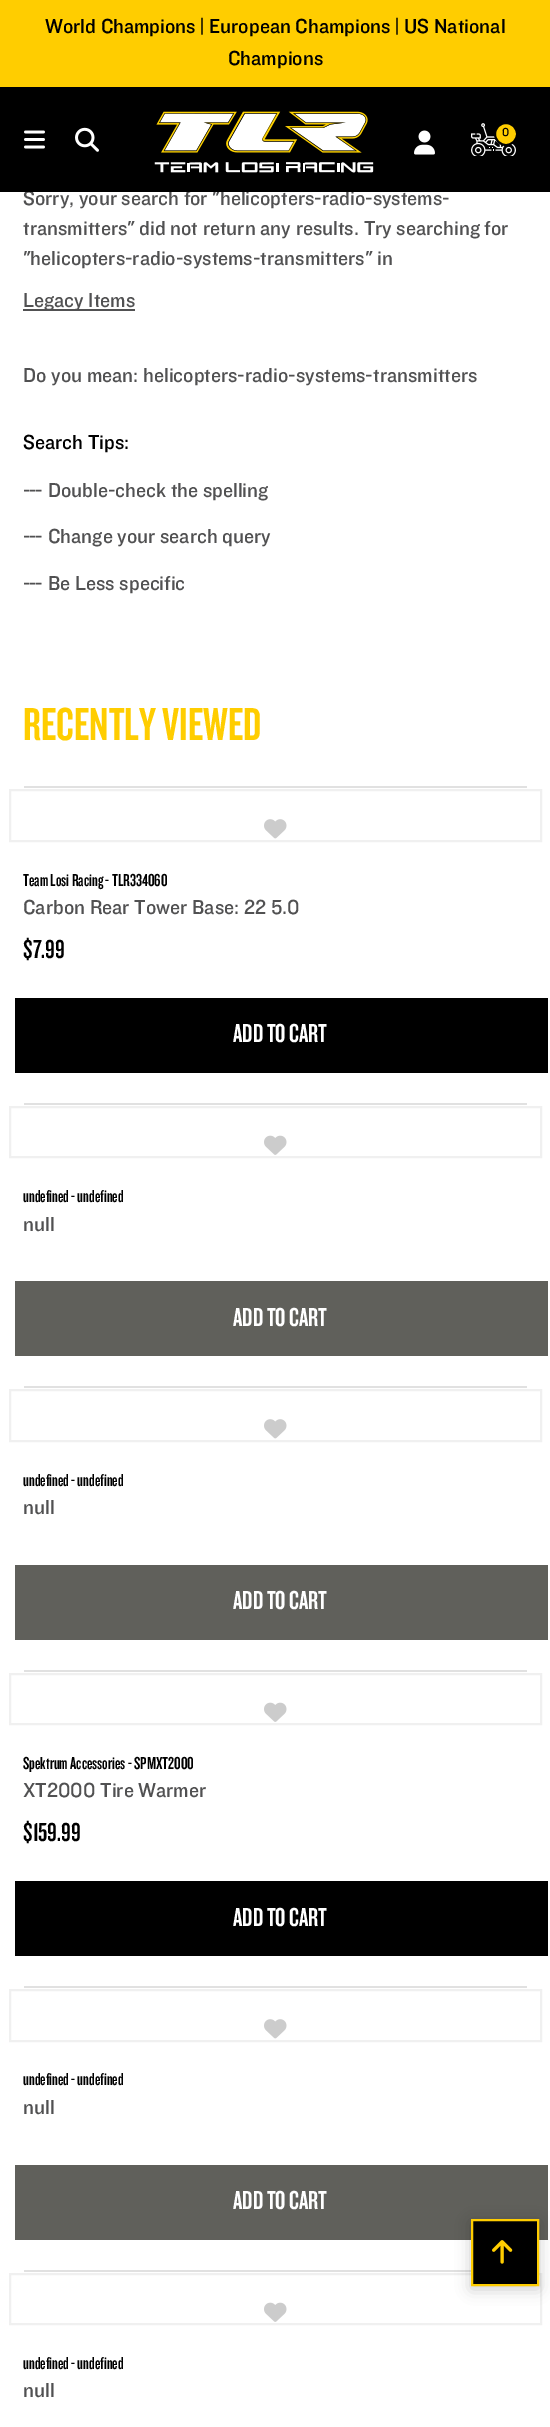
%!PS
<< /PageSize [550 2427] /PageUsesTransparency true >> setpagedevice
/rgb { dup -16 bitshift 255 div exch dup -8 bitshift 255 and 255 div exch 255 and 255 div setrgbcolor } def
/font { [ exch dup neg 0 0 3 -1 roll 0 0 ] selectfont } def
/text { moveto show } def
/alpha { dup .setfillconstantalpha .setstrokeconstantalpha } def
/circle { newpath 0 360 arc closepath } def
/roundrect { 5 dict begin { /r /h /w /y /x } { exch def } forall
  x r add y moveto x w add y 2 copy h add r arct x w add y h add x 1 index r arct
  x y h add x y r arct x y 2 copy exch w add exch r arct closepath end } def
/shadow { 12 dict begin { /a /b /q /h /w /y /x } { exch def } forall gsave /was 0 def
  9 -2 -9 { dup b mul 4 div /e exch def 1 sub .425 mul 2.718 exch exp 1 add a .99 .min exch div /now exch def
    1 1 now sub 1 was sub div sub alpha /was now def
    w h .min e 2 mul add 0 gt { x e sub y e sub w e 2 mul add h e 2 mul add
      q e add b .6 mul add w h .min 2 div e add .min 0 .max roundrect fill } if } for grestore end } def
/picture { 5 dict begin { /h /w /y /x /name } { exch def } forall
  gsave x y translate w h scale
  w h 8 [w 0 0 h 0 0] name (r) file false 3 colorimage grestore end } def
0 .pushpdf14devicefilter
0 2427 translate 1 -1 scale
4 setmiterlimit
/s1 { /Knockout-Light 21 font 16#515152 rgb } def
/s2 { /Knockout-Light 21 font 16#000000 rgb } def
/s3 { /Knockout-Light 12 font 16#000000 rgb } def
/s4 { /Knockout-Regular 48 font 16#FFCD00 rgb } def
/s5 { /Knockout-Regular 18 font 16#000000 rgb } def
/s6 { /Knockout-Regular 27 font 16#000000 rgb } def
/s7 { /Knockout-Regular 27 font 16#FFFFFF rgb } def
16#FFFFFF rgb
0 0 550 2427 rectfill
s1
(Sorry, your search for "helicopters-radio-systems-) 23 205 text
16#000000 rgb
0 87 550 105 rectfill
16#FFCD00 rgb
0 0 550 87 rectfill
s2
(World Champions | European Champions | US National) 45 33 text
(Champions) 228 65 text
(pic1.raw) 24 130 21 19 picture
(pic2.raw) 154 111 220 62 picture
(pic3.raw) 75 127 24 25 picture
(pic4.raw) 414 130 21 25 picture
(pic5.raw) 471 123 45 33 picture
16#FFCD00 rgb
506 134 11 circle gsave fill grestore
16#000000 rgb
2 setlinewidth
stroke
s3
(0) 502 136 text
s1
(transmitters" did not return any results. Try searching for) 23 235 text
("helicopters-radio-systems-transmitters" in) 23 265 text
23 309 112 2 rectfill
(Legacy Items) 23 307 text
(Do you mean: helicopters-radio-systems-transmitters) 23 382 text
s2
(Search Tips:) 23 449 text
16#515152 rgb
23 497 moveto -1.5 0 (---) ashow
(Double-check the spelling) 48 497 text
23 543 moveto -1.5 0 (---) ashow
(Change your search query) 48 543 text
23 590 moveto -1.5 0 (---) ashow
(Be Less specific) 48 590 text
s4
(RECENTLY VIEWED) 23 740 text
16#F0F0F0 rgb
10 790 531 51 rectstroke
16#E1E1E1 rgb
24 786 503 2 rectfill
(pic6.raw) 264 819 23 20 picture
s5
(Team Losi Racing - TLR334060) 23 886 text
s1
(Carbon Rear Tower Base: 22 5.0) 23 914 text
s6
($7.99) 23 958 text
15 998 533 75 rectfill
s7
(ADD TO CART) 233 1042 text
16#F0F0F0 rgb
10 1107 531 50 rectstroke
16#E1E1E1 rgb
24 1103 503 2 rectfill
(pic7.raw) 264 1135 23 20 picture
s5
(undefined - undefined) 23 1202 text
s1
(null) 23 1231 text
16#60605B rgb
15 1281 533 75 rectfill
s7
(ADD TO CART) 233 1326 text
16#F0F0F0 rgb
10 1390 531 51 rectstroke
16#E1E1E1 rgb
24 1386 503 2 rectfill
(pic6.raw) 264 1419 23 20 picture
s5
(undefined - undefined) 23 1486 text
s1
(null) 23 1514 text
16#60605B rgb
15 1565 533 75 rectfill
s7
(ADD TO CART) 233 1609 text
16#F0F0F0 rgb
10 1674 531 50 rectstroke
16#E1E1E1 rgb
24 1670 503 2 rectfill
(pic7.raw) 264 1702 23 20 picture
s5
(Spektrum Accessories - SPMXT2000) 23 1769 text
s1
(XT2000 Tire Warmer) 23 1797 text
s6
($159.99) 23 1841 text
15 1881 533 75 rectfill
s7
(ADD TO CART) 233 1926 text
16#F0F0F0 rgb
10 1990 531 51 rectstroke
16#E1E1E1 rgb
24 1986 503 2 rectfill
(pic6.raw) 264 2019 23 20 picture
s5
(undefined - undefined) 23 2085 text
s1
(null) 23 2114 text
16#60605B rgb
15 2165 533 75 rectfill
s7
(ADD TO CART) 233 2209 text
16#F0F0F0 rgb
10 2274 531 50 rectstroke
16#E1E1E1 rgb
24 2270 447 2 rectfill
(pic7.raw) 264 2302 23 20 picture
s5
(undefined - undefined) 23 2369 text
s1
(null) 23 2397 text
16#000000 rgb
471 2222 68 67 0 7.5 0.2 shadow
472 2220 moveto 538 2220 lineto 538 2285 lineto 472 2285 lineto closepath gsave fill grestore
16#FFCD00 rgb
stroke
(pic8.raw) 492 2240 21 24 picture
.poppdf14devicefilter showpage
